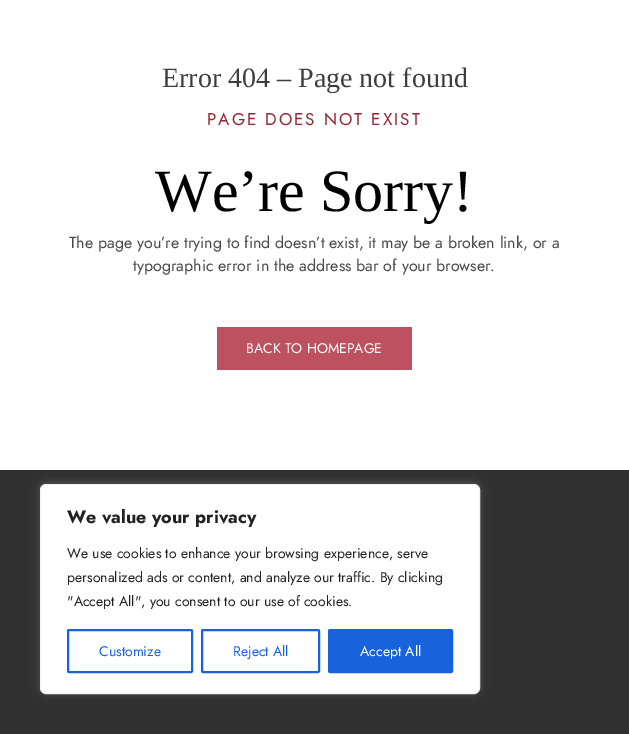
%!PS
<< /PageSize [629 734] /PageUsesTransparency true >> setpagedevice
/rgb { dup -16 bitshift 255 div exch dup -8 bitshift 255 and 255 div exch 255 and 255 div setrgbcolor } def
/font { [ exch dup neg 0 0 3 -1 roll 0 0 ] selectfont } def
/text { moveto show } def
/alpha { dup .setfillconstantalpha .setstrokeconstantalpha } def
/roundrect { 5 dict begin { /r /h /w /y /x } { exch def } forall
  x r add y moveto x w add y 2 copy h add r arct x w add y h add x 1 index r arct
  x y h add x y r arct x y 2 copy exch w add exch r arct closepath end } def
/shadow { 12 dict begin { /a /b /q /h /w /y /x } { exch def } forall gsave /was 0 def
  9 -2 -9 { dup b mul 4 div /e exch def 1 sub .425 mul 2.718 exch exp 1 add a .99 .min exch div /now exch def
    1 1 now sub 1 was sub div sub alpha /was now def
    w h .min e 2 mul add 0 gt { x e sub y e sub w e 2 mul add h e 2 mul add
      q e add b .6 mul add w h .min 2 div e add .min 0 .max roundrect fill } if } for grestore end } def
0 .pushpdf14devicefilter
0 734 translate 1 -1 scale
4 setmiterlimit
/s1 { /LiberationSerif-Regular 28 font 16#3D3D3D rgb } def
/s2 { /LiberationSerif-Regular 60 font 16#000000 rgb } def
/s3 { /Jost-Regular 16 font 16#494949 rgb } def
/s4 { /Jost-Regular 14 font 16#FFFFFF rgb } def
/s5 { /Jost-Bold 18 font 16#212121 rgb } def
/s6 { /Jost-Regular 14 font 16#212121 rgb } def
/s7 { /Jost-Regular 14 font 16#1863DC rgb } def
16#FFFFFF rgb
0 0 629 734 rectfill
s1
(Error 404 – Page not found) 162 87 text
/Jost-Regular 17 font
16#932734 rgb
207 125 moveto 2 0 (PAGE DOES NOT EXIST) ashow
s2
(We’re Sorry!) 155 211 text
s3
(The page you’re trying to find doesn’t exist, it may be a broken link, or a) 69 248 text
(typographic error in the address bar of your browser.) 133 271 text
16#BD515F rgb
217 327 195 43 rectfill
s4
(BACK TO HOMEPAGE) 246 353 text
16#303030 rgb
0 470 629 264 rectfill
16#ACABAB rgb
40 483 440 210 6 5 0.3 shadow
16#FFFFFF rgb
40.5 484.5 439 209 5.5 roundrect gsave fill grestore
16#F4F4F4 rgb
stroke
s5
(We value your privacy) 67 523 text
s6
(We use cookies to enhance your browsing experience, serve) 67 558 text
(personalized ads or content, and analyze our traffic. By clicking) 67 582 text
("Accept All", you consent to our use of cookies.) 67 606 text
16#1863DC rgb
2 setlinewidth
68 630 124 42 1 roundrect stroke
(Customize) 99 656 text
202 630 117 42 1 roundrect stroke
(Reject All) 233 656 text
329 630 123 42 1 roundrect gsave fill grestore
stroke
s4
(Accept All) 360 656 text
.poppdf14devicefilter showpage
